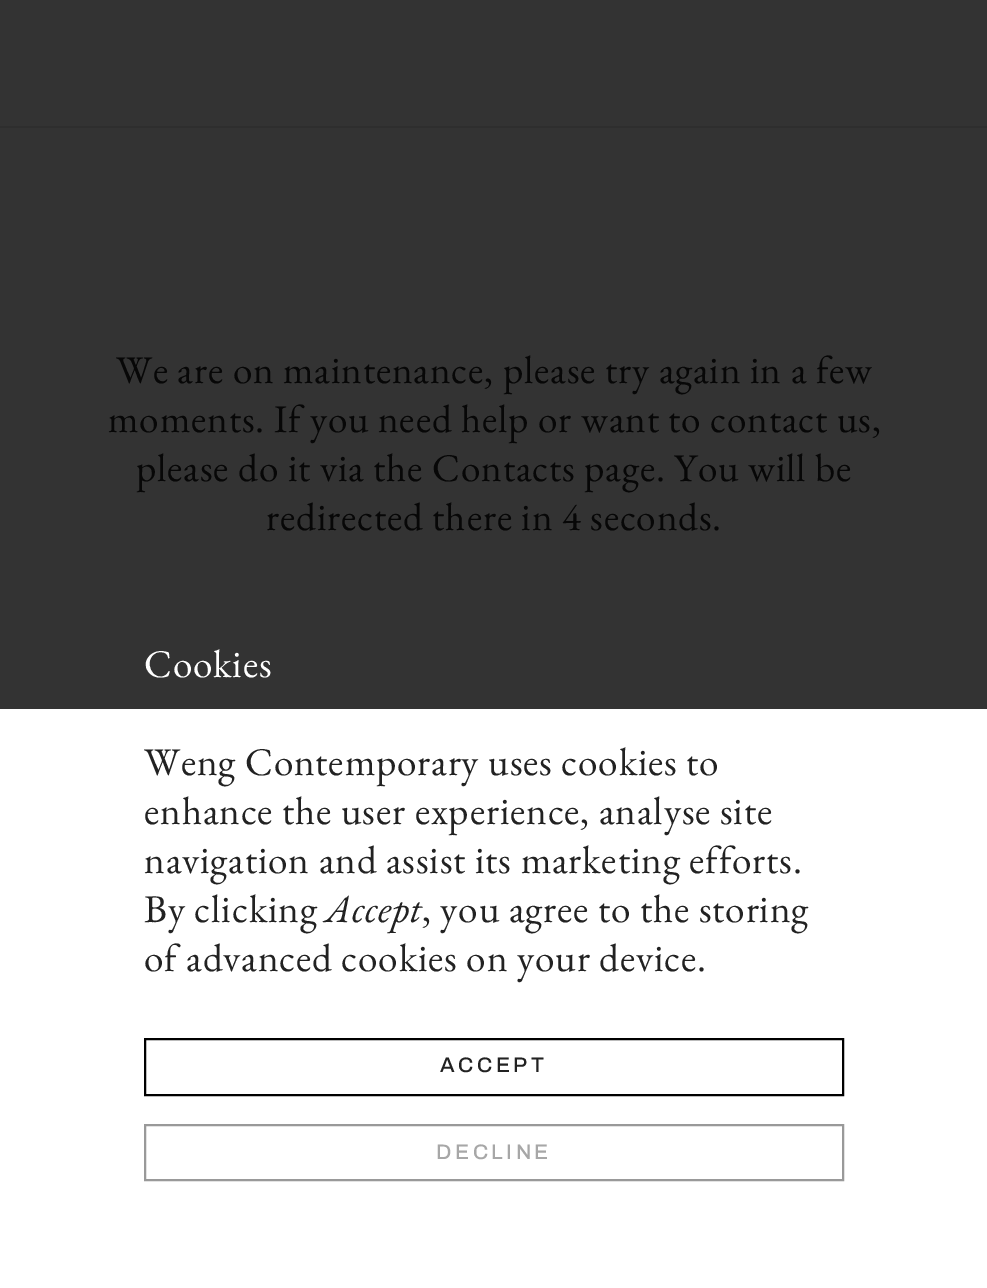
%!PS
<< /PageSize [987 1288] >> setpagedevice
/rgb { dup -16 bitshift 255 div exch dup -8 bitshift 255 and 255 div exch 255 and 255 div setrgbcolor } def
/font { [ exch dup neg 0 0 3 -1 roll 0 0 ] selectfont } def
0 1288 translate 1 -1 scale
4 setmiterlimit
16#333333 rgb
0 0 987 1288 rectfill
16#2E2E2E rgb
0 126 987 2 rectfill
/EBGaramond-Regular 39.25 font
16#070707 rgb
116 383 moveto 0.8 0 (We are on maintenance, please try again in a few) ashow
108 432 moveto 0.8 0 (moments. If you need help or want to contact us,) ashow
136 481 moveto 0.8 0 (please do it via the Contacts page. You will be) ashow
266 530 moveto 0.8 0 (redirected there in 4 seconds.) ashow
16#FFFFFF rgb
0 709 987 579 rectfill
144 677 moveto 0.8 0 (Cookies) ashow
16#222222 rgb
144 775 moveto 0.8 0 (Weng Contemporary uses cookies to) ashow
144 824 moveto 0.8 0 (enhance the user experience, analyse site) ashow
144 873 moveto 0.8 0 (navigation and assist its marketing efforts.) ashow
144 922 moveto 0.8 0 (By clicking) ashow
/EBGaramond-Italic 39.25 font
325 922 moveto 0.8 0 (Accept) ashow
/EBGaramond-Regular 39.25 font
422 922 moveto 0.8 0 (, you agree to the storing) ashow
144 971 moveto 0.8 0 (of advanced cookies on your device.) ashow
16#000000 rgb
2 setlinewidth
145 1039 698 56 rectstroke
/Archivo-Medium 21 font
16#222222 rgb
440 1072 moveto 3.5 0 (ACCEPT) ashow
16#999999 rgb
145 1125 698 55 rectstroke
16#A7A7A7 rgb
436 1159 moveto 3.5 0 (DECLINE) ashow
showpage
